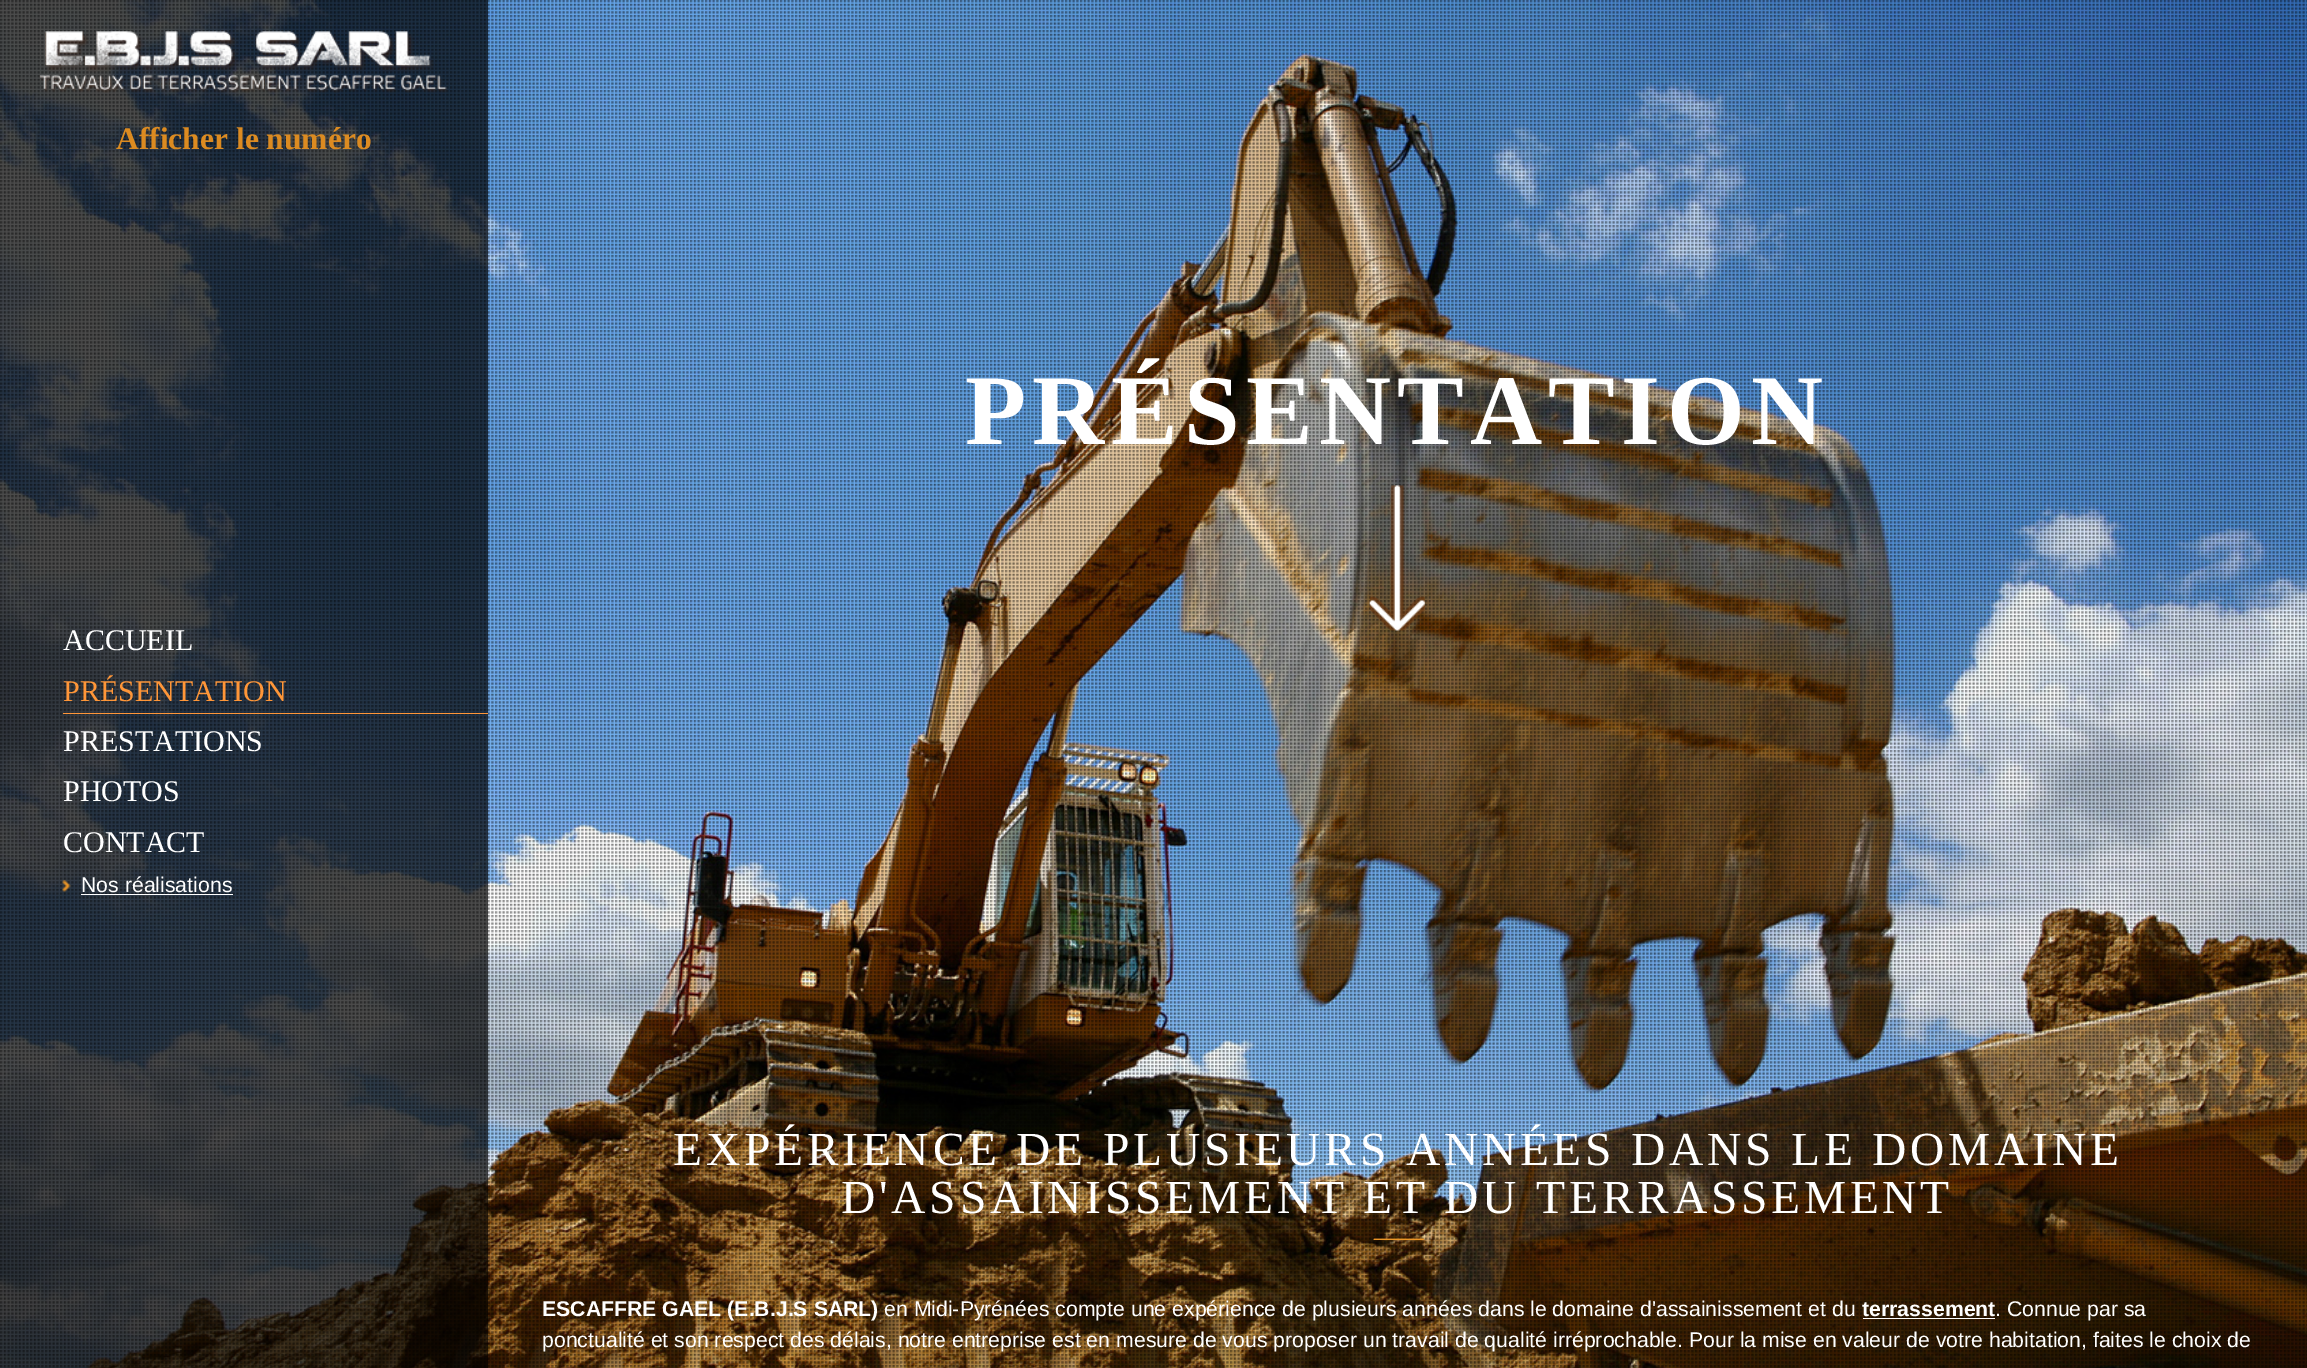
%!PS
<< /PageSize [2307 1368] /PageUsesTransparency true >> setpagedevice
/rgb { dup -16 bitshift 255 div exch dup -8 bitshift 255 and 255 div exch 255 and 255 div setrgbcolor } def
/font { [ exch dup neg 0 0 3 -1 roll 0 0 ] selectfont } def
/text { moveto show } def
/alpha { dup .setfillconstantalpha .setstrokeconstantalpha } def
/picture { 5 dict begin { /h /w /y /x /name } { exch def } forall
  gsave x y translate w h scale
  w h 8 [w 0 0 h 0 0] name (r) file false 3 colorimage grestore end } def
0 .pushpdf14devicefilter
0 1368 translate 1 -1 scale
4 setmiterlimit
/s1 { /LiberationSerif-Bold 31.5 font 16#DC8B21 rgb } def
/s2 { /LiberationSerif-Regular 30 font 16#FFFFFF rgb } def
/s3 { /LiberationSerif-Regular 30 font 16#FF9638 rgb } def
/s4 { /LiberationSans-Regular 21.25 font 16#FFFFFF rgb } def
/s5 { /LiberationSans-Bold 21.25 font 16#FFFFFF rgb } def
16#FFFFFF rgb
0 0 2307 1368 rectfill
(pic1.raw) 0 0 2307 1368 picture
(pic2.raw) 0 0 2307 1368 picture
0.7 alpha
16#000000 rgb
0 0 488 1368 rectfill
1 alpha
(pic3.raw) 39 31 409 62 picture
s1
(Afficher le numéro) 116 149 text
s2
(ACCUEIL) 63 650 text
16#FF9638 rgb
63 713 425 1 rectfill
(PRÉSENTATION) 63 701 text
s2
(PRESTATIONS) 63 751 text
(PHOTOS) 63 801 text
(CONTACT) 63 852 text
(pic4.raw) 62 880 9 12 picture
s4
(Nos réalisations) 81 892 text
81 894 152 1 rectfill
/LiberationSerif-Bold 100 font
965 444 moveto 6.25 0 (PRÉSENTATION) ashow
(pic5.raw) 1369 485 56 146 picture
/LiberationSerif-Regular 47.5 font
673 1165 moveto 3.75 0 (EXPÉRIENCE DE PLUSIEURS ANNÉES DANS LE DOMAINE) ashow
841 1213 moveto 3.75 0 (D'ASSAINISSEMENT ET DU TERRASSEMENT) ashow
(pic6.raw) 1373 1238 51 2 picture
(pic7.raw) 1373 1238 51 2 picture
s5
(ESCAFFRE GAEL \(E.B.J.S SARL\)) 542 1316 text
s4
(en Midi-Pyrénées compte une expérience de plusieurs années dans le domaine d'assainissement et du) 884 1316 text
s5
(terrassement) 1862 1316 text
1863 1318 132 1 rectfill
s4
(. Connue par sa) 1995 1316 text
(ponctualité et son respect des délais, notre entreprise est en mesure de vous proposer un travail de qualité irréprochable. Pour la mise en valeur de votre habitation, faites le choix de) 542 1347 text
.poppdf14devicefilter showpage
